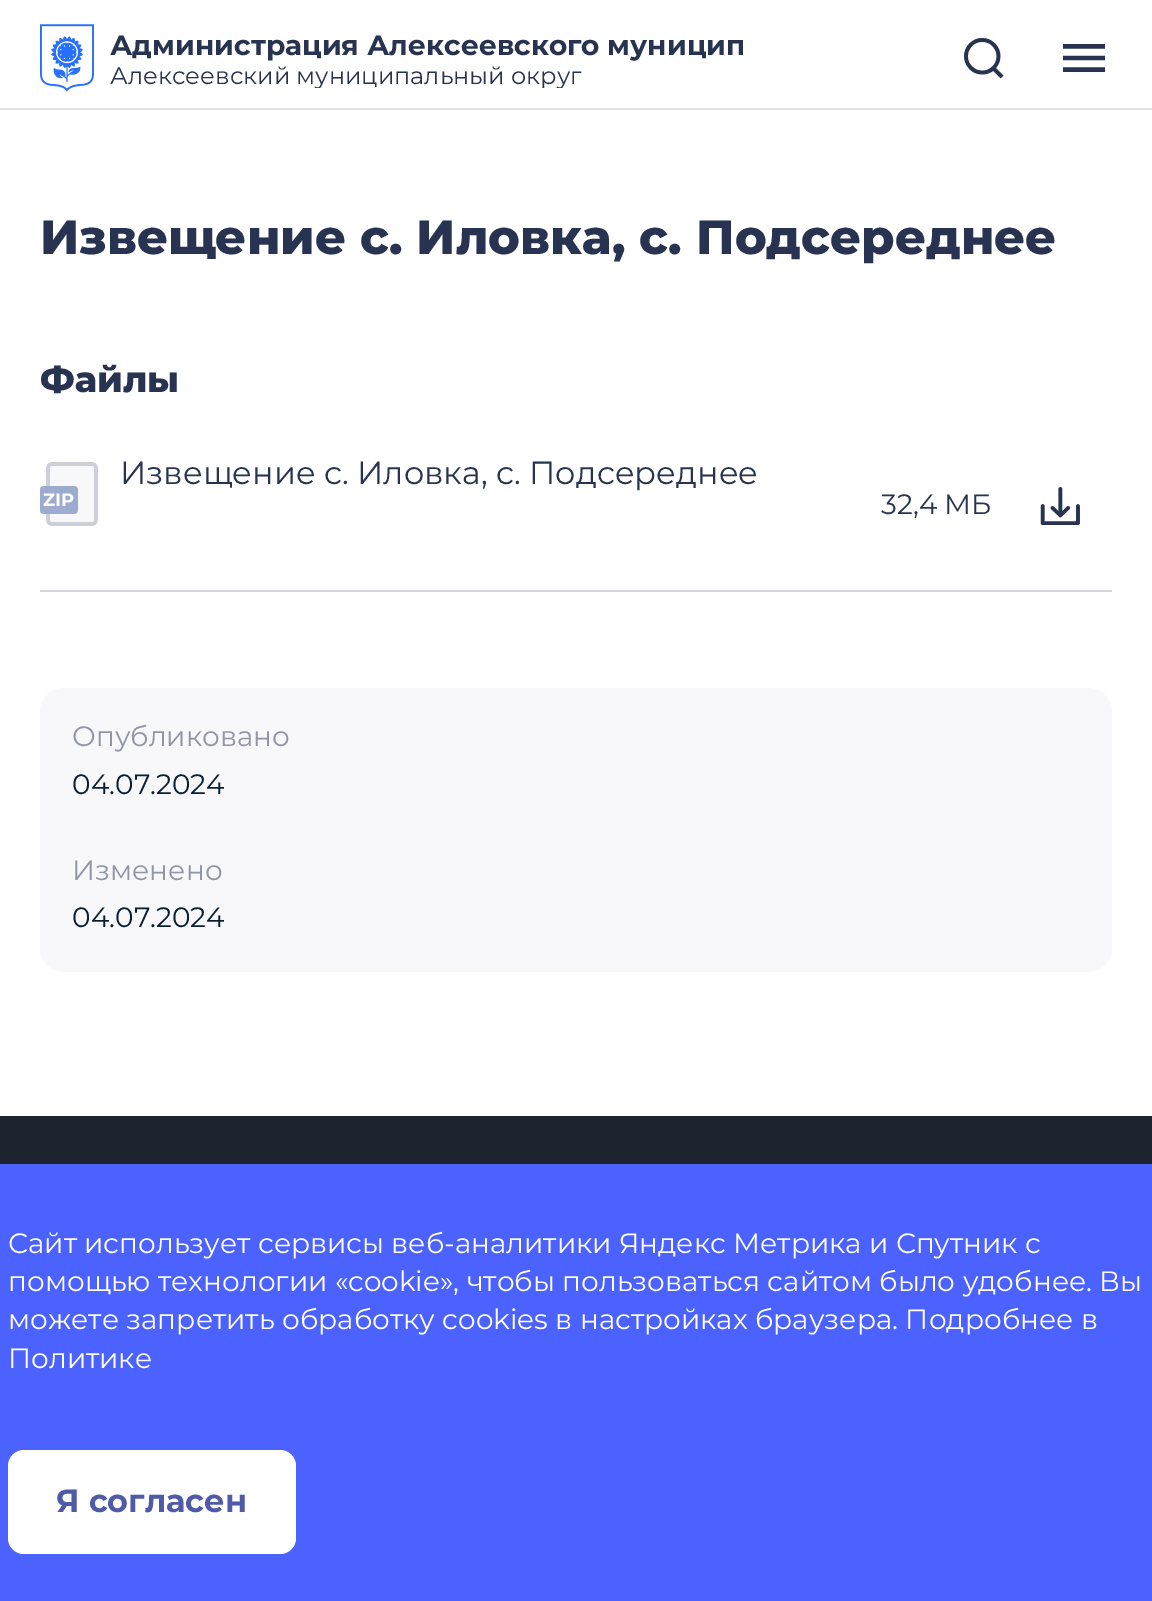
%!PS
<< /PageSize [1152 1601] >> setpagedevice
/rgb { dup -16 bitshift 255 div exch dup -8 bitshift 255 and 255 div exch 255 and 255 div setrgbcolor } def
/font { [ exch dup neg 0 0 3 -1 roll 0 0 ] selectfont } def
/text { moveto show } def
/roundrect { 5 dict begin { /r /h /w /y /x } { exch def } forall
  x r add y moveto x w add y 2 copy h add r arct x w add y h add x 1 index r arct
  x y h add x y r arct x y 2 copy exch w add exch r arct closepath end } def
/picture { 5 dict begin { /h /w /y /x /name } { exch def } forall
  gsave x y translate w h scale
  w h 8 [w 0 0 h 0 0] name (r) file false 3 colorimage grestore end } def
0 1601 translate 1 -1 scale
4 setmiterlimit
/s1 { /Montserrat-Bold 28 font 16#273350 rgb } def
/s2 { /Montserrat-Regular 24 font 16#273350 rgb } def
/s3 { /Montserrat-ExtraBold 48 font 16#273350 rgb } def
/s4 { /Montserrat-ExtraBold 36 font 16#273350 rgb } def
/s5 { /Montserrat-Regular 32 font 16#273350 rgb } def
/s6 { /Montserrat-Regular 28 font 16#273350 rgb } def
/s7 { /Montserrat-Regular 28 font 16#9096A5 rgb } def
/s8 { /Montserrat-Regular 28 font 16#0B1F33 rgb } def
/s9 { /Montserrat-Regular 28 font 16#FFFFFF rgb } def
/s10 { /Montserrat-Bold 32 font 16#4F5AA8 rgb } def
16#FFFFFF rgb
0 0 1152 1601 rectfill
16#E3E3E3 rgb
0 108 1152 2 rectfill
(pic1.raw) 40 24 54 68 picture
s1
(Администрация Алексеевского муницип) 110 55 text
gsave
110 64 640 24 rectclip
s2
(Алексеевский муниципальный округ) 110 84 text
grestore
(pic2.raw) 964 38 40 41 picture
(pic3.raw) 1063 44 42 28 picture
s3
(Извещение с. Иловка, с. Подсереднее) 40 254 text
s4
(Файлы) 40 392 text
16#D4D6DC rgb
40 590 1072 2 rectfill
(pic4.raw) 40 462 58 64 picture
s5
(Извещение с. Иловка, с. Подсереднее) 120 484 text
s6
(32,4 МБ) 881 514 text
(pic5.raw) 1040 487 40 38 picture
16#F8F8FA rgb
40 688 1072 284 24 roundrect fill
s7
(Опубликовано) 72 746 text
s8
(04.07.2024) 72 794 text
s7
(Изменено) 72 880 text
s8
(04.07.2024) 72 927 text
16#1D232F rgb
0 1116 1152 48 rectfill
16#4B62FF rgb
0 1164 1152 437 rectfill
s9
(Сайт использует сервисы веб-аналитики Яндекс Метрика и Спутник с) 8 1253 text
(помощью технологии «cookie», чтобы пользоваться сайтом было удобнее. Вы) 8 1291 text
(можете запретить обработку cookies в настройках браузера. Подробнее в) 8 1329 text
(Политике) 8 1368 text
8 1450 288 104 16 roundrect fill
s10
(Я согласен) 56 1512 text
showpage
